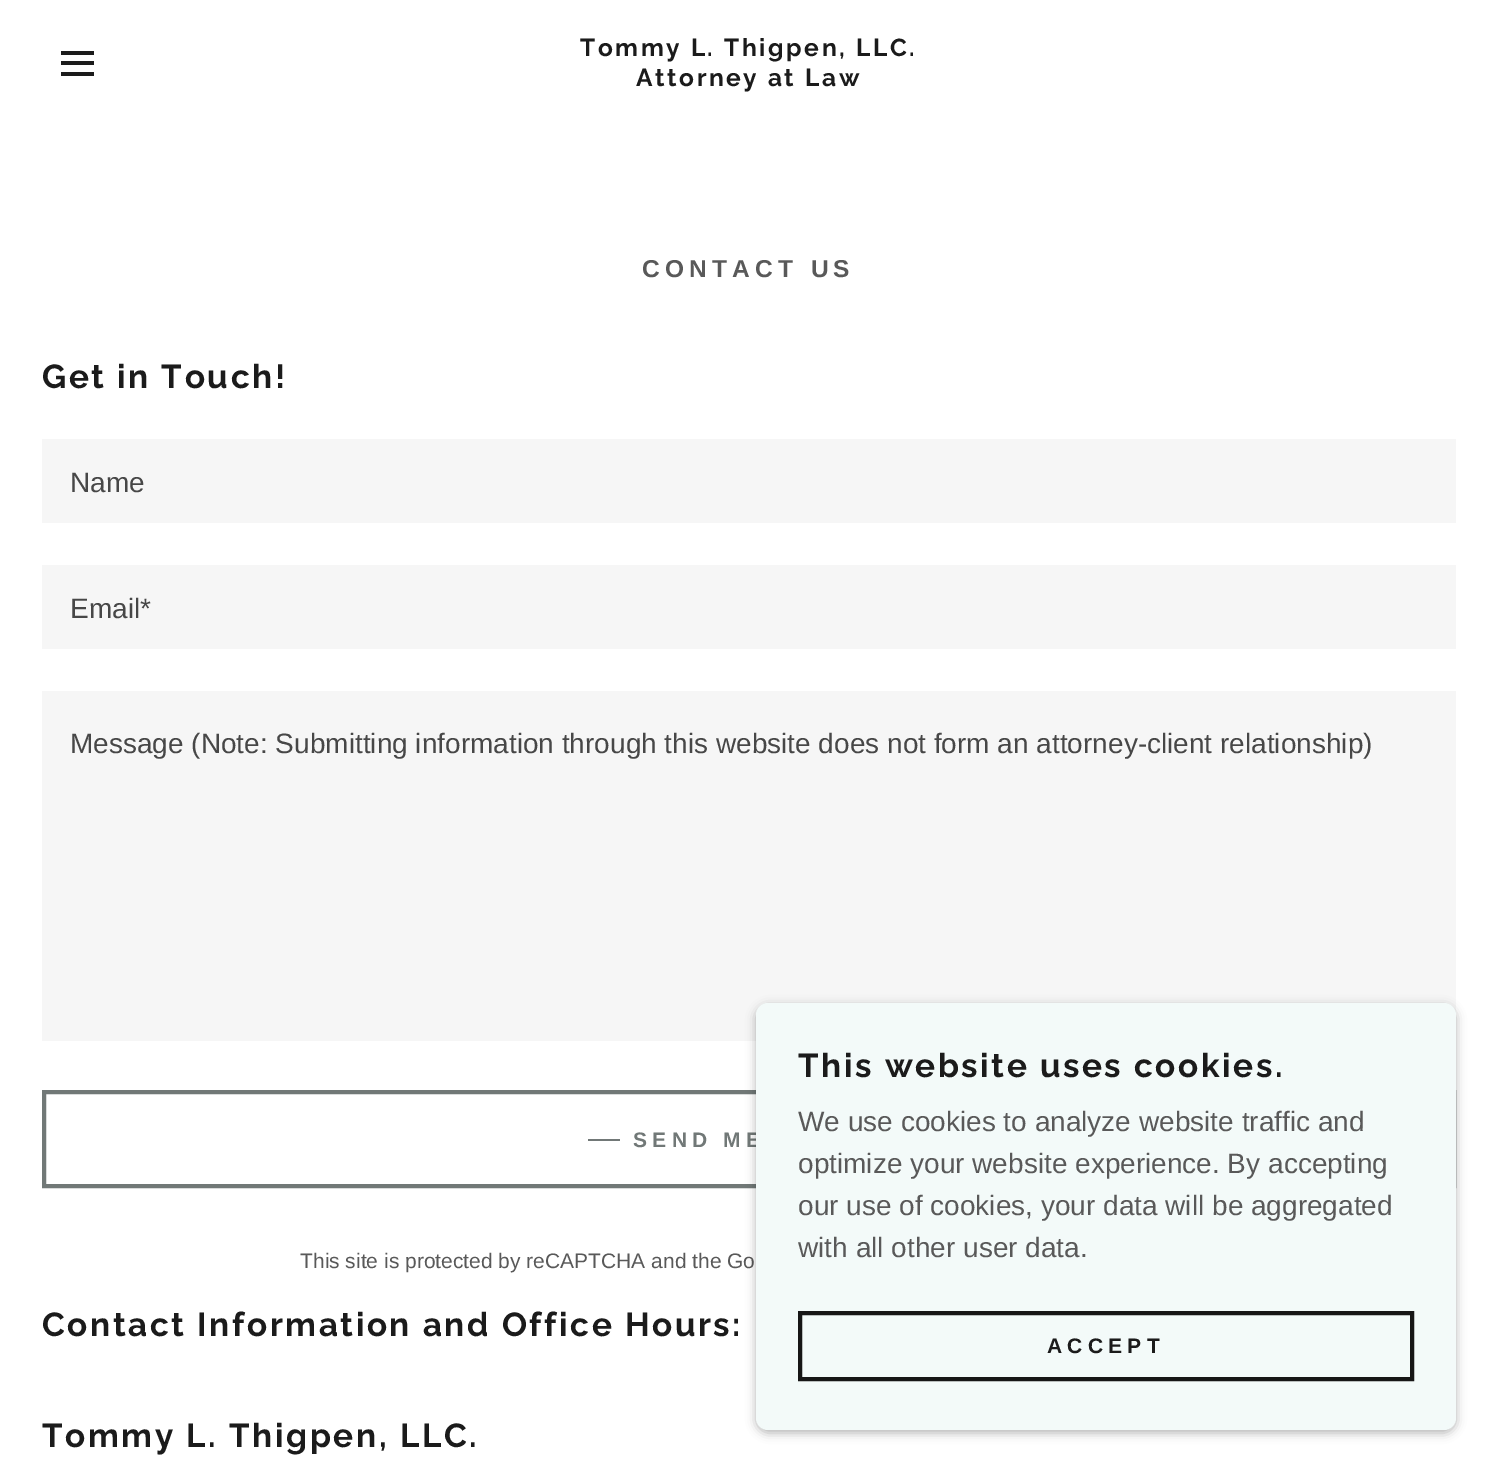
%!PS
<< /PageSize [1498 1471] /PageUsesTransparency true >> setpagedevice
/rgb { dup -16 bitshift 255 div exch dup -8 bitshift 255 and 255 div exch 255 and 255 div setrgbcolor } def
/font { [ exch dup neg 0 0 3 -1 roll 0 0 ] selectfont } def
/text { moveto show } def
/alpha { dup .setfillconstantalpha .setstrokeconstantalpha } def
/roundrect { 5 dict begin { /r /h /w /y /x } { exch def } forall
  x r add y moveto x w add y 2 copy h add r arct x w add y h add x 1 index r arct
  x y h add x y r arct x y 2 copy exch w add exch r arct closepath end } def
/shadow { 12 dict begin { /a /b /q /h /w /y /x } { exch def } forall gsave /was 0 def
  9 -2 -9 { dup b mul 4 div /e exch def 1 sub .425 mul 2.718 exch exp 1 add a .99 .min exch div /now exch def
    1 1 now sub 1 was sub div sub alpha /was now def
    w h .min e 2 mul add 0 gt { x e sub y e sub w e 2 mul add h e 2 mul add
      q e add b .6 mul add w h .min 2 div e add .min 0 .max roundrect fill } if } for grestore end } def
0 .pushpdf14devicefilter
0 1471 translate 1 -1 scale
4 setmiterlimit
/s1 { /LiberationSans-Regular 28 font 16#474747 rgb } def
/s2 { /LiberationSans-Regular 21 font 16#595959 rgb } def
/s3 { /LiberationSans-Regular 28 font 16#595959 rgb } def
16#FFFFFF rgb
0 0 1498 1471 rectfill
16#1B1B1B rgb
61 51 33 4 rectfill
61 61 33 4 rectfill
61 72 33 4 rectfill
/Raleway-Bold 24.5 font
580 56 moveto 2.6 0 (Tommy L. Thigpen, LLC.) ashow
636 86 moveto 2.6 0 (Attorney at Law) ashow
/LiberationSans-Bold 24.5 font
16#595959 rgb
642 277 moveto 5.25 0 (CONTACT US) ashow
/Raleway-Bold 33.25 font
16#1B1B1B rgb
42 388 moveto 2.6 0 (Get in Touch!) ashow
16#F6F6F6 rgb
42 439 1414 84 rectfill
s1
(Name) 70 492 text
16#F6F6F6 rgb
42 565 1414 84 rectfill
s1
(Email*) 70 618 text
16#F6F6F6 rgb
42 691 1414 350 rectfill
s1
(Message \(Note: Submitting information through this website does not form an attorney-client relationship\)) 70 753 text
16#717877 rgb
4 setlinewidth
44 1092 1410 94 rectstroke
588 1139 32 2 rectfill
/LiberationSans-Bold 21 font
633 1147 moveto 5.25 0 (SEND ME) ashow
s2
(This site is protected by reCAPTCHA and the Go) 300 1268 text
/Raleway-Bold 33.25 font
16#1B1B1B rgb
42 1336 moveto 2.6 0 (Contact Information and Office Hours:) ashow
42 1447 moveto 2.6 0 (Tommy L. Thigpen, LLC.) ashow
16#000000 rgb
756 1006 700 427 12 5 0.3 shadow
16#F3FAF9 rgb
756 1003 700 427 12 roundrect fill
16#1B1B1B rgb
798 1077 moveto 2.6 0 (This website uses cookies.) ashow
s3
(We use cookies to analyze website traffic and) 798 1131 text
(optimize your website experience. By accepting) 798 1173 text
(our use of cookies, your data will be aggregated) 798 1215 text
(with all other user data.) 798 1257 text
16#161616 rgb
800 1313 612 66 rectstroke
/LiberationSans-Bold 21 font
16#1B1B1B rgb
1047 1353 moveto 5.25 0 (ACCEPT) ashow
.poppdf14devicefilter showpage
